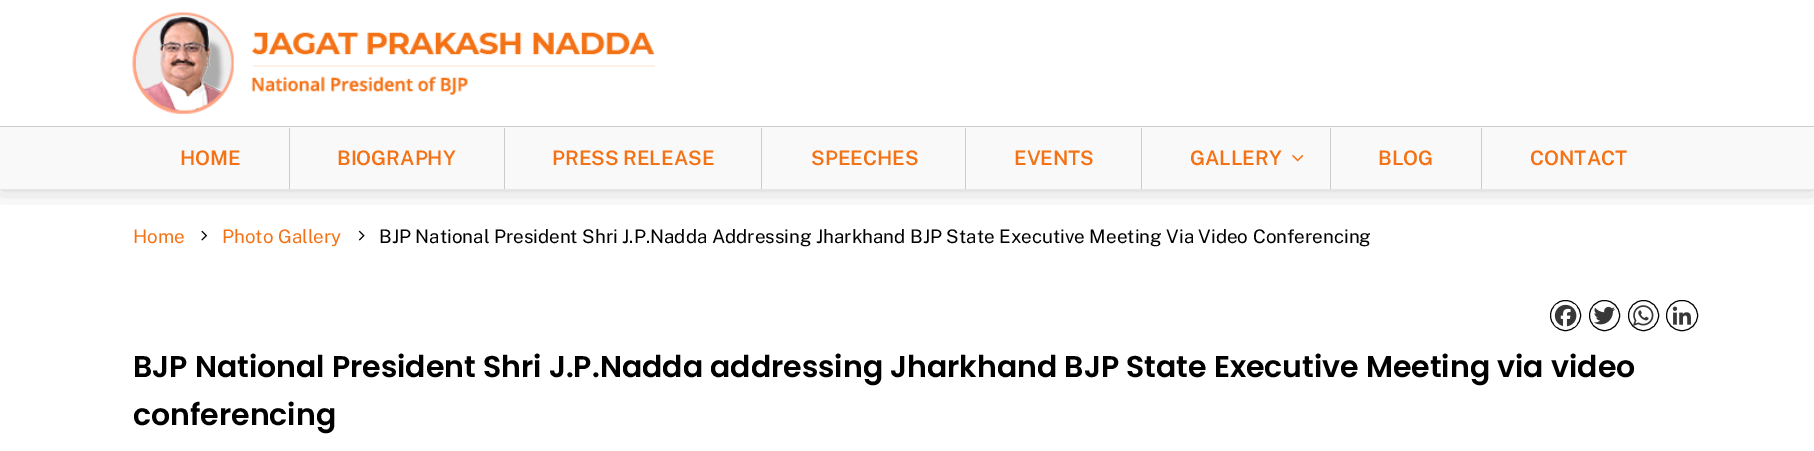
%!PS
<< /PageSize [1814 451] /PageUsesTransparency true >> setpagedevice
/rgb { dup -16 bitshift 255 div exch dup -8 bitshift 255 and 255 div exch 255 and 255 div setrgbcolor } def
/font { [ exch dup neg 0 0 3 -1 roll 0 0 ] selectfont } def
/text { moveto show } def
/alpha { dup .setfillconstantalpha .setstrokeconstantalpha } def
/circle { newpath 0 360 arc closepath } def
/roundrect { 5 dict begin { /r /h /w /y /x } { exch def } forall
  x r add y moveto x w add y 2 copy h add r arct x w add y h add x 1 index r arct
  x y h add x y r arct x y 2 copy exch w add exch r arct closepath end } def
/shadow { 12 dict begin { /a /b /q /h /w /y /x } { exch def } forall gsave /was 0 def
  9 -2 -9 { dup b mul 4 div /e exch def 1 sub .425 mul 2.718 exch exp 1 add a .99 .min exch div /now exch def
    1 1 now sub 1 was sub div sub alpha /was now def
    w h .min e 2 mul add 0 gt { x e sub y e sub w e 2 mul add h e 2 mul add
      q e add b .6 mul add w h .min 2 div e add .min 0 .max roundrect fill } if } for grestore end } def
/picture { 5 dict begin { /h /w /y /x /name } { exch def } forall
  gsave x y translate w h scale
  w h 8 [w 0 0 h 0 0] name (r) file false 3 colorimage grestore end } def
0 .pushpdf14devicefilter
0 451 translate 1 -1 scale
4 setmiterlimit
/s1 { /PublicSans-SemiBold 20 font 16#F47216 rgb } def
/s2 { /PublicSans-Regular 18.75 font 16#F47216 rgb } def
/s3 { /PublicSans-Regular 18.75 font 16#000000 rgb } def
/s4 { /Poppins-SemiBold 30 font 16#000000 rgb } def
16#FFFFFF rgb
0 0 1814 451 rectfill
gsave
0 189 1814 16 rectclip
16#000000 rgb
0 0 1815 189 0 12.5 0.2 shadow
grestore
(pic1.raw) 132 12 523 102 picture
16#F9F9F9 rgb
0 127 1814 62 rectfill
16#CCCCCC rgb
0 126 1814 1 rectfill
289 128 1 61 rectfill
s1
(HOME) 180 165 text
16#CCCCCC rgb
504 128 1 61 rectfill
s1
(BIOGRAPHY) 337 165 text
16#CCCCCC rgb
761 128 1 61 rectfill
s1
(PRESS RELEASE) 552 165 text
16#CCCCCC rgb
965 128 1 61 rectfill
s1
(SPEECHES) 811 165 text
16#CCCCCC rgb
1141 128 1 61 rectfill
s1
(EVENTS) 1014 165 text
16#CCCCCC rgb
1330 128 1 61 rectfill
s1
(GALLERY) 1190 165 text
(pic2.raw) 1292 155 12 7 picture
16#CCCCCC rgb
1481 128 1 61 rectfill
s1
(BLOG) 1378 165 text
(CONTACT) 1530 165 text
s2
(Home) 133 243 text
(pic3.raw) 201 230 6 11 picture
(Photo Gallery) 222 243 text
(pic4.raw) 358 230 7 11 picture
s3
(BJP National President Shri J.P.Nadda Addressing Jharkhand BJP State Executive Meeting Via Video Conferencing) 379 243 text
1565.5 315.5 15 circle stroke
(pic5.raw) 1554 304 23 23 picture
1604.5 315.5 15 circle stroke
(pic6.raw) 1593 306 22 19 picture
1643.5 315.5 15 circle stroke
(pic7.raw) 1633 305 21 21 picture
1666.5 300.5 31 30 15 roundrect stroke
(pic8.raw) 1672 306 19 19 picture
s4
(BJP National President Shri J.P.Nadda addressing Jharkhand BJP State Executive Meeting via video) 133 377 text
(conferencing) 133 425 text
.poppdf14devicefilter showpage
